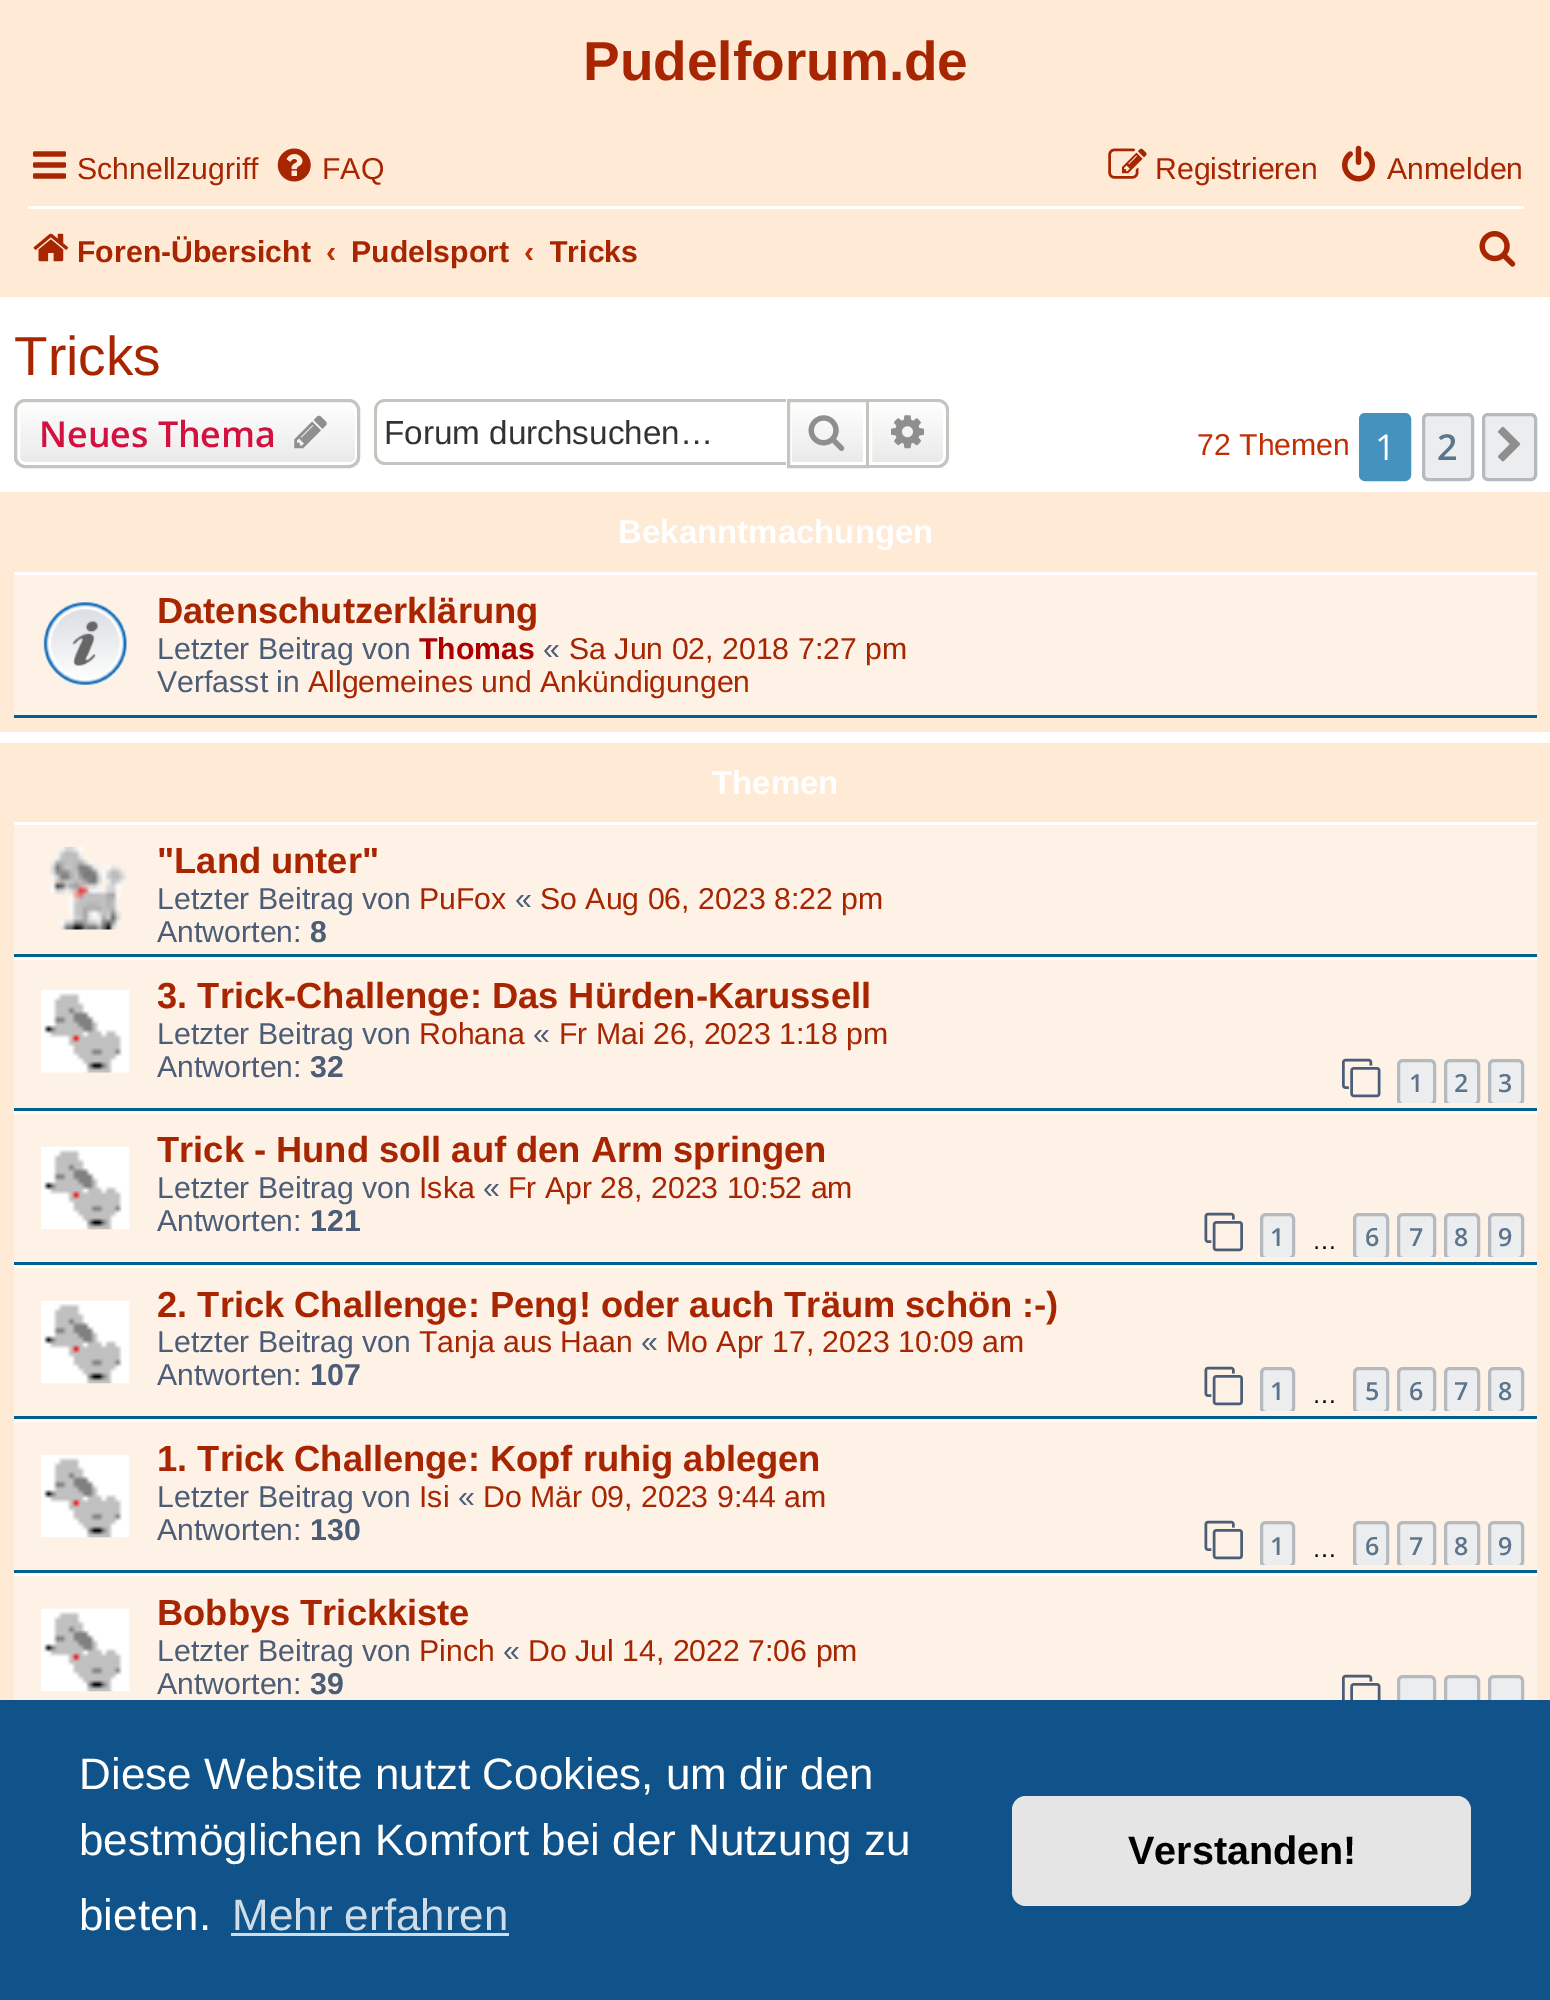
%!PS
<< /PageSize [1550 2000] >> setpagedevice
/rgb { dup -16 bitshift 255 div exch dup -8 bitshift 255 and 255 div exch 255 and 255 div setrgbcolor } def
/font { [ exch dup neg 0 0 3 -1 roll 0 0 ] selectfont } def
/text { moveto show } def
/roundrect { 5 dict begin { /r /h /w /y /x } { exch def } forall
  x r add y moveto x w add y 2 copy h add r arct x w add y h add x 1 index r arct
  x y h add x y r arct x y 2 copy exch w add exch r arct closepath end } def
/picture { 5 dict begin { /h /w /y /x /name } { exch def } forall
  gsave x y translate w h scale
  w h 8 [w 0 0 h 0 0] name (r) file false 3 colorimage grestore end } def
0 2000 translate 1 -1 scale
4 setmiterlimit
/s1 { /LiberationSans-Bold 55 font 16#A72601 rgb } def
/s2 { /LiberationSans-Regular 30.25 font 16#A72601 rgb } def
/s3 { /LiberationSans-Bold 30.25 font 16#A72601 rgb } def
/s4 { /LiberationSans-Bold 30.25 font 16#C22D01 rgb } def
/s5 { /LiberationSans-Regular 55 font 16#A72601 rgb } def
/s6 { /OpenSans-SemiBold 35.75 font 16#D31141 rgb } def
/s7 { /LiberationSans-Regular 33.25 font 16#333333 rgb } def
/s8 { /LiberationSans-Regular 30.25 font 16#C22D01 rgb } def
/s9 { /OpenSans-Regular 35.75 font 16#FFFFFF rgb } def
/s10 { /OpenSans-SemiBold 35.75 font 16#5C758C rgb } def
/s11 { /LiberationSans-Bold 33 font 16#FFFFFF rgb } def
/s12 { /LiberationSans-Bold 36.3 font 16#A72601 rgb } def
/s13 { /LiberationSans-Regular 30.25 font 16#4C5D77 rgb } def
/s14 { /LiberationSans-Bold 30.25 font 16#AA0000 rgb } def
/s15 { /LiberationSans-Bold 30.25 font 16#4C5D77 rgb } def
/s16 { /OpenSans-SemiBold 25 font 16#5C758C rgb } def
/s17 { /LiberationSans-Regular 25 font 16#000000 rgb } def
/s18 { /LiberationSans-Regular 44 font 16#FFFFFF rgb } def
/s19 { /LiberationSans-Regular 44 font 16#CFDDE8 rgb } def
/s20 { /LiberationSans-Bold 39.5 font 16#000000 rgb } def
16#FFFFFF rgb
0 0 1550 2000 rectfill
16#FEEAD5 rgb
0 0 1550 297 rectfill
s1
(Pudelforum.de) 583 80 text
(pic1.raw) 33 151 33 28 picture
s2
(Schnellzugriff) 77 179 text
(pic2.raw) 277 148 34 34 picture
(FAQ) 322 179 text
(pic3.raw) 1108 148 39 31 picture
(Registrieren) 1155 179 text
(pic4.raw) 1342 145 33 37 picture
(Anmelden) 1387 179 text
16#FFFFFF rgb
28 206 1496 3 rectfill
(pic5.raw) 33 233 36 29 picture
s3
(Foren-Übersicht) 77 262 text
s4
(‹) 326 262 text
s3
(Pudelsport) 351 262 text
s4
(‹) 524 262 text
gsave
550 217 88 66 rectclip
s3
(Tricks) 549 262 text
grestore
(pic6.raw) 1479 231 37 36 picture
s5
(Tricks) 14 375 text
gsave
14 399 346 69 11 roundrect clip newpath
gsave 14 402 moveto 360 402 lineto 360 465 lineto 14 465 lineto closepath clip newpath
<< /ShadingType 2 /ColorSpace /DeviceRGB /Coords [187 402 187 465] /Extend [true true] /Function << /FunctionType 2 /Domain [0 1] /C0 [1 1 1] /C1 [0.914 0.914 0.914] /N 1 >> >> shfill grestore
grestore
16#FFFFFF rgb
3 setlinewidth
18.5 403.5 338 60 6.5 roundrect stroke
16#C7C3BF rgb
15.5 400.5 343 66 9.5 roundrect stroke
s6
(Neues Thema) 39 447 text
(pic7.raw) 294 415 33 34 picture
16#C7C3BF rgb
385 399 moveto 786 399 lineto 786 465 lineto 385 465 lineto 379 465 374 460 374 454 curveto 374 410 lineto 374 404 379 399 385 399 curveto closepath 385 402 moveto 786 402 lineto 786 462 lineto 385 462 lineto 380 462 377 458 377 454 curveto 377 410 lineto 377 405 380 402 385 402 curveto closepath eofill
s7
(Forum durchsuchen…) 384 444 text
gsave 792 409 moveto 863 409 lineto 863 462 lineto 792 462 lineto closepath clip newpath
<< /ShadingType 2 /ColorSpace /DeviceRGB /Coords [828 402 828 465] /Extend [true true] /Function << /FunctionType 2 /Domain [0 1] /C0 [1 1 1] /C1 [0.914 0.914 0.914] /N 1 >> >> shfill grestore
16#C7C3BF rgb
788.5 400.5 79 66 rectstroke
(pic8.raw) 808 415 37 36 picture
gsave 870.5 403.5 moveto 938 403.5 lineto 941.5 403.5 944.5 406.5 944.5 410 curveto 944.5 457 lineto 944.5 460.5 941.5 463.5 938 463.5 curveto 870.5 463.5 lineto closepath clip newpath
<< /ShadingType 2 /ColorSpace /DeviceRGB /Coords [908 402 908 465] /Extend [true true] /Function << /FunctionType 2 /Domain [0 1] /C0 [1 1 1] /C1 [0.914 0.914 0.914] /N 1 >> >> shfill grestore
16#FFFFFF rgb
870.5 403.5 moveto 938 403.5 lineto 941.5 403.5 944.5 406.5 944.5 410 curveto 944.5 457 lineto 944.5 460.5 941.5 463.5 938 463.5 curveto 870.5 463.5 lineto closepath stroke
16#C7C3BF rgb
869 399 moveto 938 399 lineto 944 399 949 404 949 410 curveto 949 456 lineto 949 463 944 468 938 468 curveto 869 468 lineto closepath 869 402 moveto 938 402 lineto 942 402 946 405 946 410 curveto 946 456 lineto 946 461 942 465 938 465 curveto 869 465 lineto closepath eofill
(pic9.raw) 891 415 33 34 picture
s8
(72 Themen) 1197 455 text
16#4692BF rgb
1360.5 414.5 49 65 4.5 roundrect gsave fill grestore
stroke
s9
(1) 1375 460 text
16#ECEDEE rgb
1423.5 414.5 49 65 4.5 roundrect gsave fill grestore
16#B4BAC0 rgb
stroke
s10
(2) 1437 460 text
16#ECEDEE rgb
1483.5 414.5 52 65 4.5 roundrect gsave fill grestore
16#B4BAC0 rgb
stroke
(pic10.raw) 1498 426 23 36 picture
16#FEEAD5 rgb
0 492 1550 240 rectfill
s11
(Bekanntmachungen) 618 543 text
16#FEF2E7 rgb
14 575 1523 140 rectfill
16#FFFFFF rgb
14 572 1523 3 rectfill
16#00608F rgb
14 715 1523 3 rectfill
(pic11.raw) 43 602 84 83 picture
s12
(Datenschutzerklärung) 157 623 text
s13
(Letzter Beitrag von) 157 659 text
s14
(Thomas) 419 659 text
s13
(«) 543 659 text
s2
(Sa Jun 02, 2018 7:27 pm) 569 659 text
s13
(Verfasst in) 157 692 text
s2
(Allgemeines und Ankündigungen) 308 692 text
16#FEEAD5 rgb
0 743 1550 957 rectfill
s11
(Themen) 712 794 text
16#FEF2E7 rgb
14 825 1523 129 rectfill
16#FFFFFF rgb
14 822 1523 3 rectfill
16#00608F rgb
14 954 1523 3 rectfill
(pic12.raw) 49 847 78 83 picture
s12
("Land unter") 157 873 text
s13
(Letzter Beitrag von) 157 909 text
s2
(PuFox) 419 909 text
s13
(«) 515 909 text
s2
(So Aug 06, 2023 8:22 pm) 540 909 text
s13
(Antworten:) 157 942 text
s15
(8) 310 942 text
16#FEF2E7 rgb
14 960 1523 148 rectfill
16#FFFFFF rgb
14 957 1523 3 rectfill
16#00608F rgb
14 1108 1523 3 rectfill
(pic13.raw) 41 990 89 83 picture
s12
(3. Trick-Challenge: Das Hürden-Karussell) 157 1008 text
s13
(Letzter Beitrag von) 157 1044 text
s2
(Rohana) 419 1044 text
s13
(«) 533 1044 text
s2
(Fr Mai 26, 2023 1:18 pm) 559 1044 text
s13
(Antworten:) 157 1077 text
s15
(32) 310 1077 text
(pic14.raw) 1342 1058 39 40 picture
gsave
14 965 1523 138 rectclip
16#ECEDEE rgb
1398.5 1060.5 36 44 4.5 roundrect gsave fill grestore
16#B4BAC0 rgb
stroke
grestore
s16
(1) 1409 1092 text
gsave
14 965 1523 138 rectclip
16#ECEDEE rgb
1445.5 1060.5 33 44 4.5 roundrect gsave fill grestore
16#B4BAC0 rgb
stroke
grestore
(2) 1454 1092 text
gsave
14 965 1523 138 rectclip
16#ECEDEE rgb
1489.5 1060.5 33 44 4.5 roundrect gsave fill grestore
16#B4BAC0 rgb
stroke
grestore
(3) 1498 1092 text
16#FEF2E7 rgb
14 1114 1523 148 rectfill
16#FFFFFF rgb
14 1111 1523 3 rectfill
16#00608F rgb
14 1262 1523 3 rectfill
(pic15.raw) 41 1146 89 84 picture
s12
(Trick - Hund soll auf den Arm springen) 157 1162 text
s13
(Letzter Beitrag von) 157 1198 text
s2
(Iska) 419 1198 text
s13
(«) 483 1198 text
s2
(Fr Apr 28, 2023 10:52 am) 508 1198 text
s13
(Antworten:) 157 1231 text
s15
(121) 310 1231 text
(pic16.raw) 1204 1212 39 40 picture
gsave
14 1119 1523 138 rectclip
16#ECEDEE rgb
1261.5 1214.5 32 44 4.5 roundrect gsave fill grestore
16#B4BAC0 rgb
stroke
grestore
s16
(1) 1270 1246 text
gsave
14 1119 1523 138 rectclip
16#ECEDEE rgb
1354.5 1214.5 33 44 4.5 roundrect gsave fill grestore
16#B4BAC0 rgb
stroke
grestore
(6) 1365 1246 text
gsave
14 1119 1523 138 rectclip
16#ECEDEE rgb
1398.5 1214.5 36 44 4.5 roundrect gsave fill grestore
16#B4BAC0 rgb
stroke
grestore
(7) 1409 1246 text
gsave
14 1119 1523 138 rectclip
16#ECEDEE rgb
1445.5 1214.5 33 44 4.5 roundrect gsave fill grestore
16#B4BAC0 rgb
stroke
grestore
(8) 1454 1246 text
gsave
14 1119 1523 138 rectclip
16#ECEDEE rgb
1489.5 1214.5 33 44 4.5 roundrect gsave fill grestore
16#B4BAC0 rgb
stroke
grestore
(9) 1498 1246 text
s17
(…) 1312 1249 text
16#FEF2E7 rgb
14 1268 1523 148 rectfill
16#FFFFFF rgb
14 1265 1523 3 rectfill
16#00608F rgb
14 1416 1523 3 rectfill
(pic15.raw) 41 1300 89 84 picture
s12
(2. Trick Challenge: Peng! oder auch Träum schön :-\)) 157 1317 text
s13
(Letzter Beitrag von) 157 1352 text
s2
(Tanja aus Haan) 419 1352 text
s13
(«) 641 1352 text
s2
(Mo Apr 17, 2023 10:09 am) 666 1352 text
s13
(Antworten:) 157 1385 text
s15
(107) 310 1385 text
(pic16.raw) 1204 1366 39 40 picture
gsave
14 1273 1523 138 rectclip
16#ECEDEE rgb
1261.5 1368.5 32 44 4.5 roundrect gsave fill grestore
16#B4BAC0 rgb
stroke
grestore
s16
(1) 1270 1400 text
gsave
14 1273 1523 138 rectclip
16#ECEDEE rgb
1354.5 1368.5 33 44 4.5 roundrect gsave fill grestore
16#B4BAC0 rgb
stroke
grestore
(5) 1365 1400 text
gsave
14 1273 1523 138 rectclip
16#ECEDEE rgb
1398.5 1368.5 36 44 4.5 roundrect gsave fill grestore
16#B4BAC0 rgb
stroke
grestore
(6) 1409 1400 text
gsave
14 1273 1523 138 rectclip
16#ECEDEE rgb
1445.5 1368.5 33 44 4.5 roundrect gsave fill grestore
16#B4BAC0 rgb
stroke
grestore
(7) 1454 1400 text
gsave
14 1273 1523 138 rectclip
16#ECEDEE rgb
1489.5 1368.5 33 44 4.5 roundrect gsave fill grestore
16#B4BAC0 rgb
stroke
grestore
(8) 1498 1400 text
s17
(…) 1312 1403 text
16#FEF2E7 rgb
14 1422 1523 148 rectfill
16#FFFFFF rgb
14 1419 1523 3 rectfill
16#00608F rgb
14 1570 1523 3 rectfill
(pic15.raw) 41 1454 89 84 picture
s12
(1. Trick Challenge: Kopf ruhig ablegen) 157 1471 text
s13
(Letzter Beitrag von) 157 1507 text
s2
(Isi) 419 1507 text
s13
(«) 458 1507 text
s2
(Do Mär 09, 2023 9:44 am) 483 1507 text
s13
(Antworten:) 157 1540 text
s15
(130) 310 1540 text
(pic16.raw) 1204 1520 39 40 picture
gsave
14 1427 1523 138 rectclip
16#ECEDEE rgb
1261.5 1522.5 32 44 4.5 roundrect gsave fill grestore
16#B4BAC0 rgb
stroke
grestore
s16
(1) 1270 1555 text
s17
(…) 1312 1557 text
gsave
14 1427 1523 138 rectclip
16#ECEDEE rgb
1354.5 1522.5 33 44 4.5 roundrect gsave fill grestore
16#B4BAC0 rgb
stroke
grestore
s16
(6) 1365 1555 text
gsave
14 1427 1523 138 rectclip
16#ECEDEE rgb
1398.5 1522.5 36 44 4.5 roundrect gsave fill grestore
16#B4BAC0 rgb
stroke
grestore
(7) 1409 1555 text
gsave
14 1427 1523 138 rectclip
16#ECEDEE rgb
1445.5 1522.5 33 44 4.5 roundrect gsave fill grestore
16#B4BAC0 rgb
stroke
grestore
(8) 1454 1555 text
gsave
14 1427 1523 138 rectclip
16#ECEDEE rgb
1489.5 1522.5 33 44 4.5 roundrect gsave fill grestore
16#B4BAC0 rgb
stroke
grestore
(9) 1498 1555 text
16#FEF2E7 rgb
14 1576 1523 124 rectfill
16#FFFFFF rgb
14 1573 1523 3 rectfill
(pic15.raw) 41 1608 89 84 picture
s12
(Bobbys Trickkiste) 157 1625 text
s13
(Letzter Beitrag von) 157 1661 text
s2
(Pinch) 419 1661 text
s13
(«) 503 1661 text
s2
(Do Jul 14, 2022 7:06 pm) 528 1661 text
s13
(Antworten:) 157 1694 text
s15
(39) 310 1694 text
(pic17.raw) 1342 1674 39 26 picture
16#ECEDEE rgb
1398.5 1676.5 36 44 4.5 roundrect gsave fill grestore
16#B4BAC0 rgb
stroke
16#ECEDEE rgb
1445.5 1676.5 33 44 4.5 roundrect gsave fill grestore
16#B4BAC0 rgb
stroke
16#ECEDEE rgb
1489.5 1676.5 33 44 4.5 roundrect gsave fill grestore
16#B4BAC0 rgb
stroke
16#0F538A rgb
0 1700 1550 300 rectfill
s18
(Diese Website nutzt Cookies, um dir den) 79 1789 text
(bestmöglichen Komfort bei der Nutzung zu) 79 1855 text
(bieten.) 79 1930 text
s19
(Mehr erfahren) 232 1930 text
231 1933 278 3 rectfill
16#E5E5E5 rgb
1012 1796 459 110 14 roundrect fill
s20
(Verstanden!) 1128 1864 text
showpage
